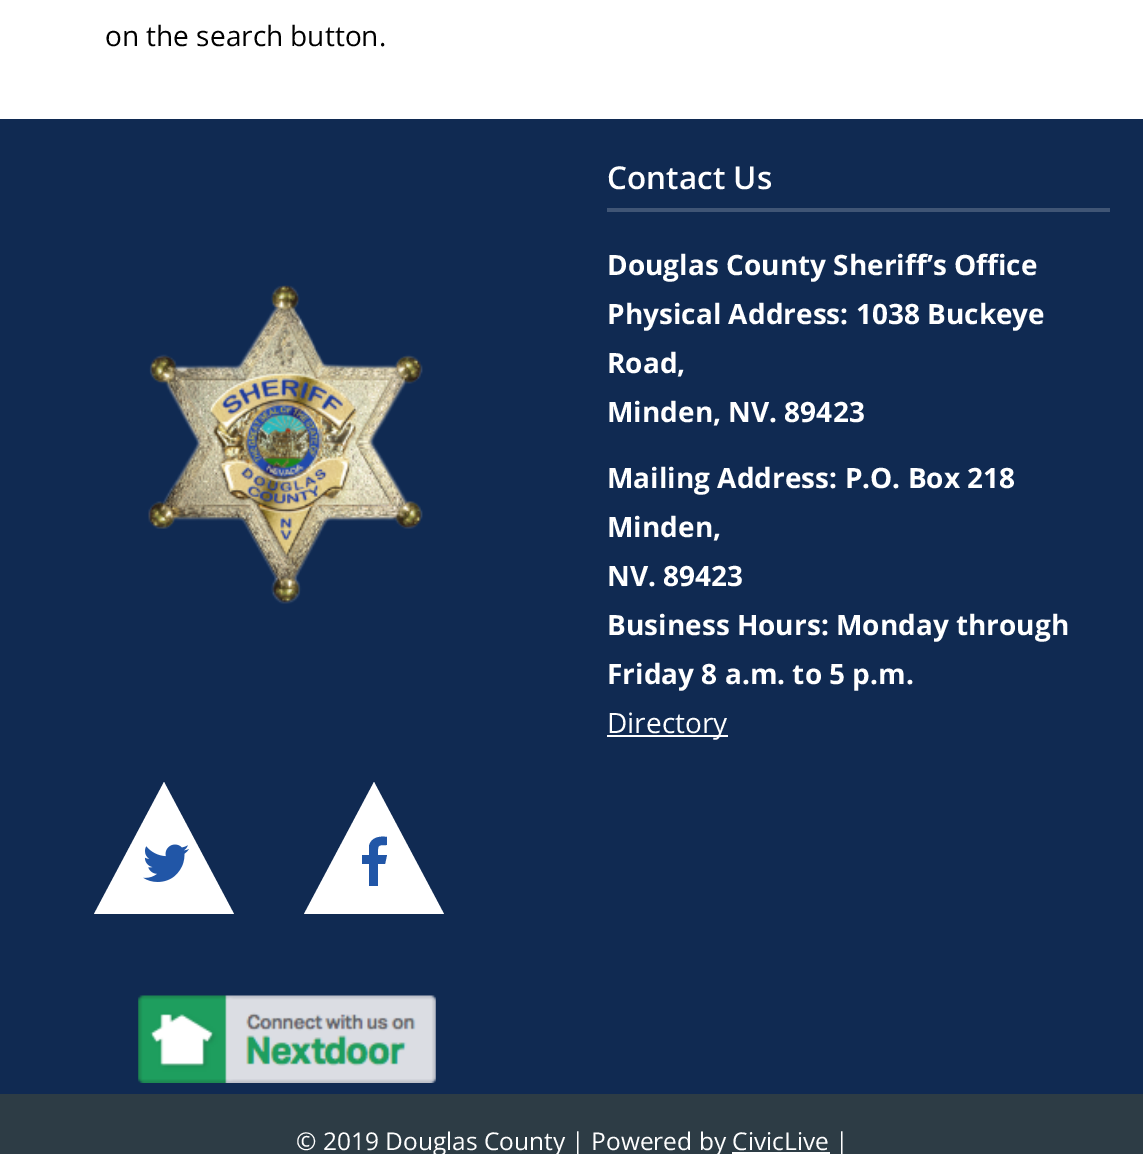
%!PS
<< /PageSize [1143 1154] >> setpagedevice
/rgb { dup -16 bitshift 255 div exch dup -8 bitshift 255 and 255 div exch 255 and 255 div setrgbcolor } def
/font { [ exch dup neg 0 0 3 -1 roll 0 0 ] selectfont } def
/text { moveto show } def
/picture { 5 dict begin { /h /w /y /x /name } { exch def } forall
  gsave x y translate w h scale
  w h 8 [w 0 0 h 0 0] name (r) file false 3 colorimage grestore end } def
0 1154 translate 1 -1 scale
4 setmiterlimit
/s1 { /OpenSans-Regular 28 font 16#000000 rgb } def
/s2 { /OpenSans-SemiBold 31.5 font 16#FFFFFF rgb } def
/s3 { /OpenSans-Bold 28 font 16#FFFFFF rgb } def
/s4 { /OpenSans-Regular 28 font 16#FFFFFF rgb } def
/s5 { /OpenSans-Regular 24.5 font 16#FFFFFF rgb } def
16#FFFFFF rgb
0 0 1143 1154 rectfill
s1
(on the search button.) 105 46 text
16#102A52 rgb
0 119 1143 975 rectfill
(pic1.raw) 148 285 275 319 picture
16#405575 rgb
607 208 503 4 rectfill
s2
(Contact Us) 607 189 text
s3
(Douglas County Sheriff’s Office) 607 275 text
(Physical Address: 1038 Buckeye) 607 324 text
(Road,) 607 373 text
(Minden, NV. 89423) 607 422 text
(Mailing Address: P.O. Box 218) 607 488 text
(Minden,) 607 537 text
(NV. 89423) 607 586 text
(Business Hours: Monday through) 607 635 text
(Friday 8 a.m. to 5 p.m.) 607 684 text
607 735 121 2 rectfill
s4
(Directory) 607 733 text
234 914 moveto 94 914 lineto 164 782 lineto closepath fill
(pic2.raw) 143 844 46 38 picture
444 914 moveto 304 914 lineto 374 782 lineto closepath fill
16#2156A7 rgb
387 837 moveto 387 845 lineto 377 845 378 845 378 855 curveto 387 855 lineto 385 864 lineto 378 864 lineto 378 886 lineto 369 886 lineto 369 864 lineto 362 864 lineto 362 855 lineto 369 855 lineto 369 846 lineto 371 837 380 836 387 837 curveto closepath fill
(pic3.raw) 138 995 298 88 picture
16#2D3C45 rgb
0 1094 1143 60 rectfill
s5
(© 2019 Douglas County | Powered by CivicLive |) 296 1150 text
732 1152 98 2 rectfill
showpage
